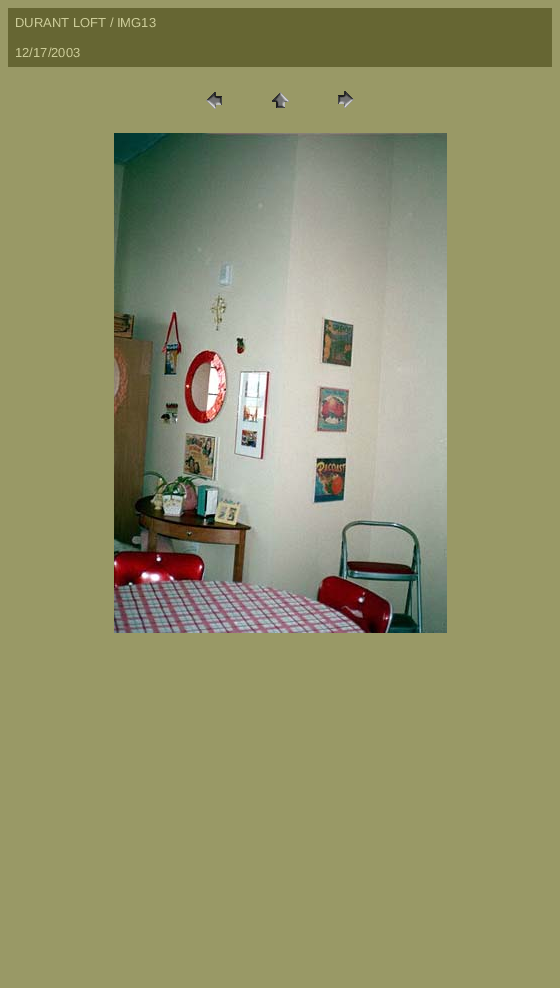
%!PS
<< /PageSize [560 988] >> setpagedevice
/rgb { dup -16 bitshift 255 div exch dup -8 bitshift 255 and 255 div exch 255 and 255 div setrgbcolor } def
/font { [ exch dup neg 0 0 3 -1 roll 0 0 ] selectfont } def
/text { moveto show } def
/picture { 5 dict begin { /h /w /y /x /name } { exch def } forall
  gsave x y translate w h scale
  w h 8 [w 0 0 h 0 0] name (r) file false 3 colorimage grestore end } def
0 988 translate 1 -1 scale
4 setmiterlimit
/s1 { /LiberationSans-Regular 13 font 16#CCCC99 rgb } def
16#999966 rgb
0 0 560 988 rectfill
16#666633 rgb
8 8 544 59 rectfill
s1
(DURANT LOFT / IMG13) 15 27 text
(12/17/2003) 15 57 text
(pic1.raw) 206 92 16 17 picture
(pic2.raw) 272 92 17 16 picture
(pic3.raw) 338 91 16 17 picture
(pic4.raw) 114 133 333 500 picture
showpage
